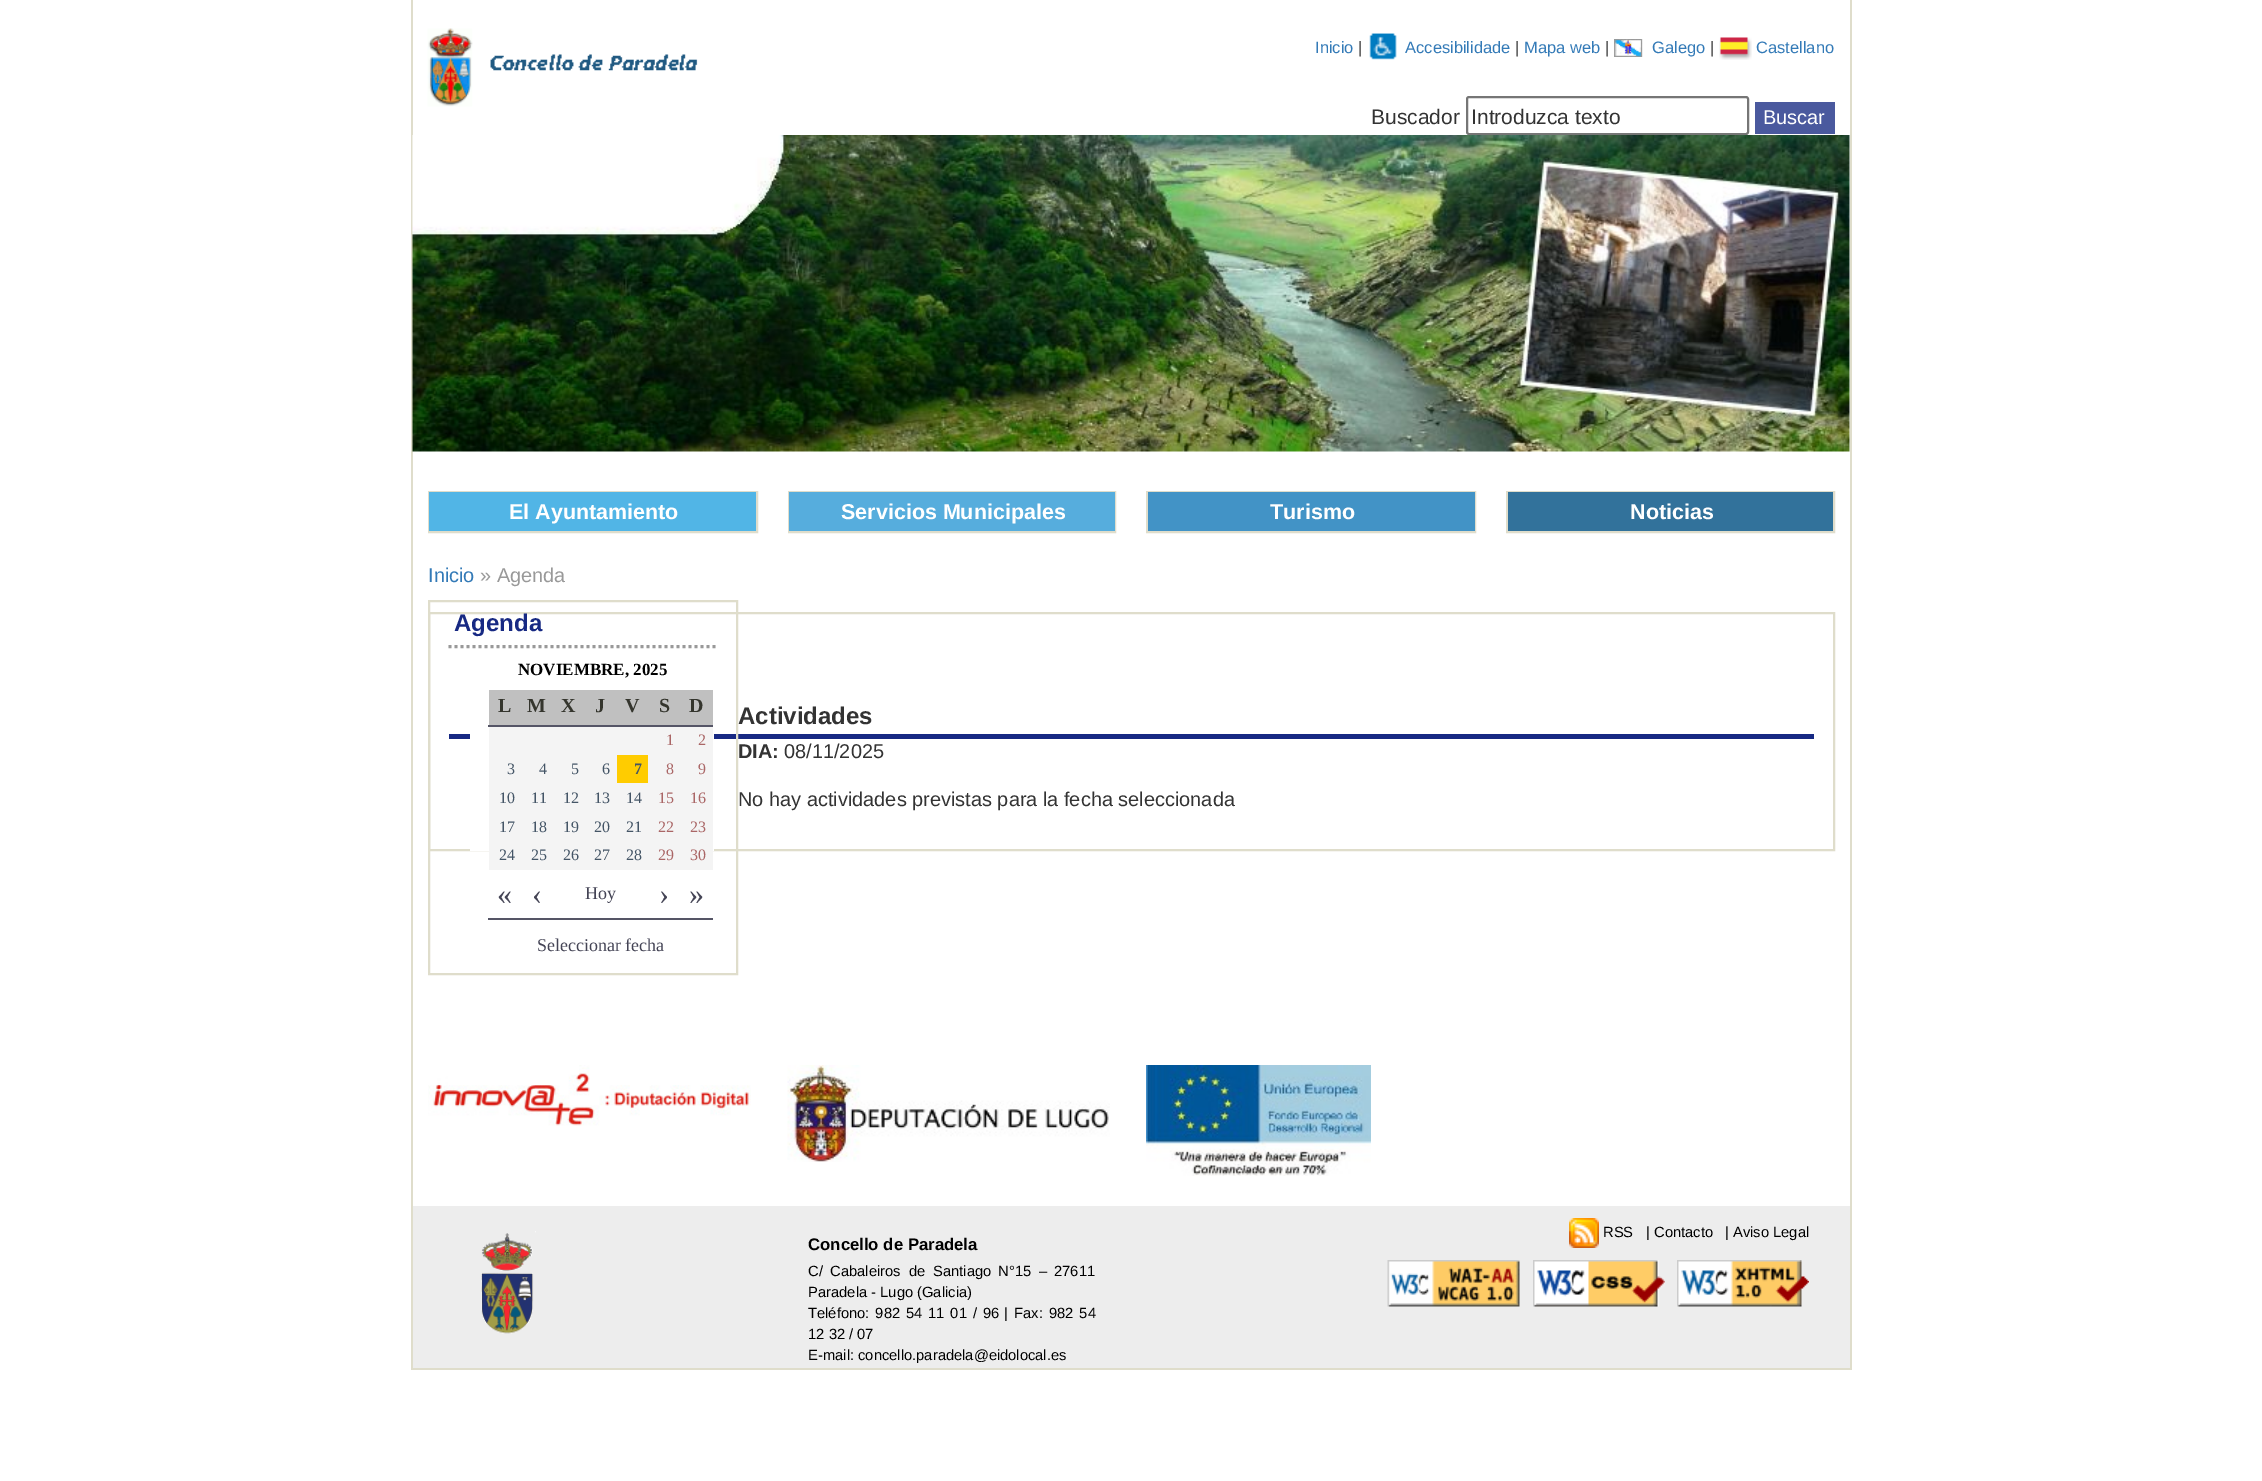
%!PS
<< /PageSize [2262 1481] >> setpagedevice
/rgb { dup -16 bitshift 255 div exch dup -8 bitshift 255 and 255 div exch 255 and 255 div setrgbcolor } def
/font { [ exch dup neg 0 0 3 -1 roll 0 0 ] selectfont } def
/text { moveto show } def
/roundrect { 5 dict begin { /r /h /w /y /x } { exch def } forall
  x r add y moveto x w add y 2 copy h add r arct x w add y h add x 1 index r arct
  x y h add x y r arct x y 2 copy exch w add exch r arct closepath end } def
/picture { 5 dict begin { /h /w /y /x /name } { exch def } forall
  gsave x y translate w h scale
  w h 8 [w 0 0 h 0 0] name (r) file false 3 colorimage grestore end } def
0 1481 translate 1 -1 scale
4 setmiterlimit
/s1 { /LiberationSans-Regular 16.5 font 16#337AB7 rgb } def
/s2 { /LiberationSans-Regular 16.5 font 16#333333 rgb } def
/s3 { /LiberationSans-Regular 21 font 16#333333 rgb } def
/s4 { /LiberationSans-Regular 19.95 font 16#FFFFFF rgb } def
/s5 { /LiberationSans-Bold 21.5 font 16#FFFFFF rgb } def
/s6 { /LiberationSans-Regular 19.95 font 16#337AB7 rgb } def
/s7 { /LiberationSans-Regular 19.95 font 16#999999 rgb } def
/s8 { /LiberationSans-Bold 24 font 16#172983 rgb } def
/s9 { /LiberationSerif-Bold 17 font 16#000000 rgb } def
/s10 { /LiberationSerif-Bold 19.95 font 16#34352D rgb } def
/s11 { /LiberationSerif-Regular 16 font 16#AA6666 rgb } def
/s12 { /LiberationSerif-Regular 16 font 16#445566 rgb } def
/s13 { /LiberationSerif-Bold 16 font 16#445566 rgb } def
/s14 { /LiberationSerif-Regular 30 font 16#444455 rgb } def
/s15 { /LiberationSerif-Regular 18 font 16#444455 rgb } def
/s16 { /LiberationSans-Bold 24 font 16#333333 rgb } def
/s17 { /LiberationSans-Bold 19.95 font 16#333333 rgb } def
/s18 { /LiberationSans-Regular 19.95 font 16#333333 rgb } def
/s19 { /LiberationSans-Bold 16.75 font 16#000000 rgb } def
/s20 { /LiberationSans-Regular 14.75 font 16#000000 rgb } def
16#FFFFFF rgb
0 0 2262 1481 rectfill
16#DFDDCB rgb
1850 0 2 1370 rectfill
411 1368 1440 2 rectfill
411 0 2 1370 rectfill
(pic1.raw) 427 28 271 79 picture
s1
(Inicio) 1315 53 text
s2
(|) 1358 53 text
(pic2.raw) 1369 33 28 27 picture
s1
(Accesibilidade) 1405 53 text
s2
(|) 1515 53 text
s1
(Mapa web) 1524 53 text
s2
(|) 1605 53 text
(pic3.raw) 1614 39 29 18 picture
s1
(Galego) 1652 53 text
s2
(|) 1710 53 text
(pic4.raw) 1719 37 33 23 picture
s1
(Castellano) 1756 53 text
s3
(Buscador) 1371 124 text
16#767676 rgb
2 setlinewidth
1467 97 281 37 2 roundrect stroke
s3
(Introduzca texto) 1471 124 text
16#4A599E rgb
1755 102 80 32 rectfill
s4
(Buscar) 1763 124 text
(pic5.raw) 412 135 1438 317 picture
16#DFDDCB rgb
429 492 328 40 rectstroke
16#51B5E6 rgb
429 492 327 39 rectfill
s5
(El Ayuntamiento) 509 519 text
16#DFDDCB rgb
789 492 326 40 rectstroke
16#56ADDD rgb
789 492 326 39 rectfill
s5
(Servicios Municipales) 841 519 text
16#DFDDCB rgb
1147 492 328 40 rectstroke
16#4293C6 rgb
1148 492 327 39 rectfill
s5
(Turismo) 1270 519 text
16#DFDDCB rgb
1507 492 327 40 rectstroke
16#32729B rgb
1508 492 325 39 rectfill
s5
(Noticias) 1630 519 text
s6
(Inicio) 428 582 text
s7
(» Agenda) 480 582 text
16#DFDDCB rgb
429 613 1405 237 rectstroke
16#172983 rgb
449 734 1365 5 rectfill
16#DFDDCB rgb
429 601 308 373 rectstroke
16#999999 rgb
3 setlinewidth
[3 3] 0 setdash
448.5 646.5 moveto 715.5 646.5 lineto stroke
s8
(Agenda) 454 631 text
16#FFFFFF rgb
470 734 244 117 rectfill
s9
(NOVIEMBRE, 2025) 518 675 text
16#C0C0C0 rgb
489 690 224 35 rectfill
s10
(L) 498 712 text
(M) 527 712 text
(X) 561 712 text
(J) 595 712 text
(V) 625 712 text
(S) 659 712 text
16#555566 rgb
488 725 225 2 rectfill
s10
(D) 689 712 text
16#F4F4F4 rgb
489 727 224 143 rectfill
s11
(1) 666 745 text
(2) 698 745 text
s12
(3) 507 774 text
(4) 539 774 text
(5) 571 774 text
(6) 602 774 text
16#FFCC00 rgb
617 755 31 28 rectfill
s13
(7) 634 774 text
s11
(8) 666 774 text
(9) 698 774 text
s12
(10) 499 803 text
(11) 531 803 text
(12) 563 803 text
(13) 594 803 text
(14) 626 803 text
s11
(15) 658 803 text
(16) 690 803 text
s12
(17) 499 832 text
(18) 531 832 text
(19) 563 832 text
(20) 594 832 text
(21) 626 832 text
s11
(22) 658 832 text
(23) 690 832 text
s12
(24) 499 860 text
(25) 531 860 text
(26) 563 860 text
(27) 594 860 text
(28) 626 860 text
s11
(29) 658 860 text
(30) 690 860 text
s14
(«) 497 904 text
(‹) 532 904 text
s15
(Hoy) 585 899 text
s14
(›) 659 904 text
(») 689 904 text
16#555566 rgb
488 918 225 2 rectfill
s15
(Seleccionar fecha) 537 951 text
s16
(Actividades) 738 724 text
s17
(DIA:) 738 758 text
s18
(08/11/2025) 784 758 text
(No hay actividades previstas para la fecha seleccionada) 738 806 text
(pic6.raw) 428 1065 323 61 picture
(pic7.raw) 787 1065 323 97 picture
(pic8.raw) 1146 1065 225 111 picture
16#EDEDED rgb
413 1206 1437 162 rectfill
(pic9.raw) 481 1231 55 103 picture
s19
(Concello de Paradela) 808 1250 text
s20
(C/) 808 1276 text
830 1276 moveto 4 0 32 (Cabaleiros de Santiago) widthshow
998 1276 moveto 4 0 32 (N°15 –) widthshow
(27611) 1054 1276 text
(Paradela - Lugo \(Galicia\)) 808 1297 text
808 1318 moveto 1.75 0 32 (Teléfono: 982 54 11 01 / 96) widthshow
1004 1318 moveto 2 0 32 (| Fax: 982 54) widthshow
(12 32 / 07) 808 1339 text
(E-mail: concello.paradela@eidolocal.es) 808 1360 text
(pic10.raw) 1569 1218 30 30 picture
(RSS) 1603 1237 text
(| Contacto) 1646 1237 text
(| Aviso Legal) 1725 1237 text
(pic11.raw) 1387 1260 133 47 picture
(pic12.raw) 1533 1260 132 47 picture
(pic13.raw) 1677 1260 132 47 picture
showpage
